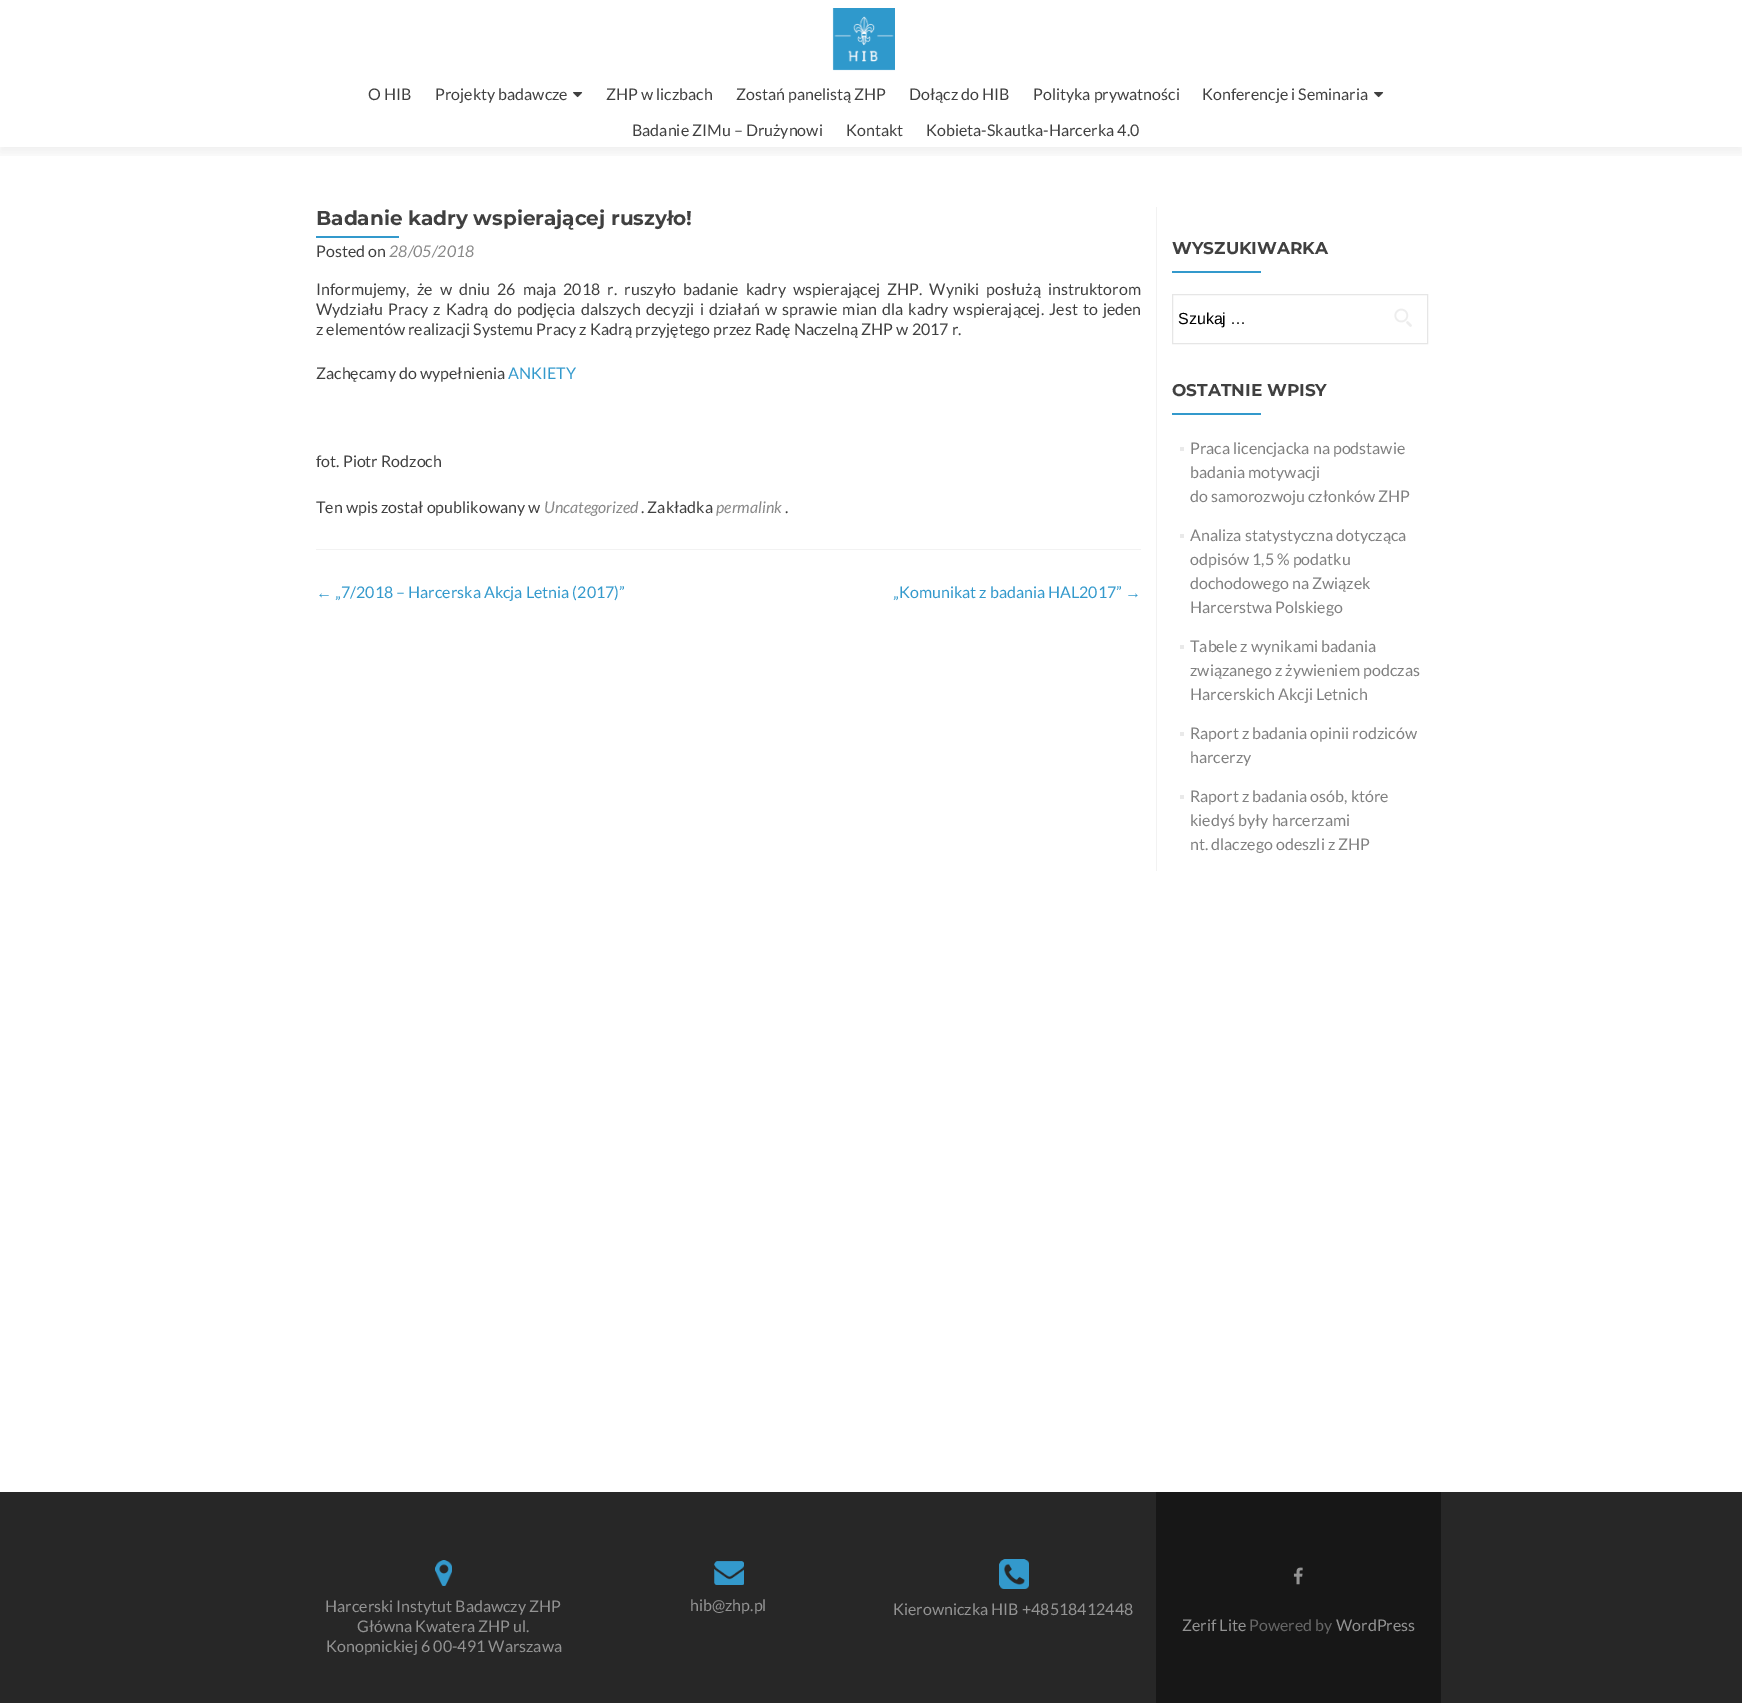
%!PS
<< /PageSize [1742 1703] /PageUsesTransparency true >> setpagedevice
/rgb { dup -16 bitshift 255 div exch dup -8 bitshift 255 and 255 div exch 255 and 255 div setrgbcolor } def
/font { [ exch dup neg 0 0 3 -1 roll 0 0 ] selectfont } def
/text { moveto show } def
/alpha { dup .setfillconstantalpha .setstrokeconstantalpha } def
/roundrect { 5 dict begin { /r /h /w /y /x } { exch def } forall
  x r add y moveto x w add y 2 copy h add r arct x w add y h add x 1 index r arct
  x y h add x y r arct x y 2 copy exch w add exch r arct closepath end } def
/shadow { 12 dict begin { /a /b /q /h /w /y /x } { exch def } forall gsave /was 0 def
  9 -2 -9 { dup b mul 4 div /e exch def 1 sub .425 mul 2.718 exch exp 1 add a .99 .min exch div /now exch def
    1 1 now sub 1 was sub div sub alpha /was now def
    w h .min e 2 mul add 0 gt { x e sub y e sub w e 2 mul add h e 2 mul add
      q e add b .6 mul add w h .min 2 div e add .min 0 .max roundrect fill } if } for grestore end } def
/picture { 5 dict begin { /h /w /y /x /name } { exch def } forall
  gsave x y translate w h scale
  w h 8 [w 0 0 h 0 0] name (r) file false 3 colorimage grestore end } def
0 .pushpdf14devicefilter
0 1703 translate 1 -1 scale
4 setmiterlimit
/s1 { /Lato-Regular 16 font 16#404040 rgb } def
/s2 { /Montserrat-Bold 20 font 16#404040 rgb } def
/s3 { /Lato-Italic 16 font 16#888888 rgb } def
/s4 { /Lato-Regular 16 font 16#3399CC rgb } def
/s5 { /LiberationSans-Regular 16 font 16#3399CC rgb } def
/s6 { /Montserrat-Bold 17 font 16#404040 rgb } def
/s7 { /LiberationSans-Regular 16 font 16#000000 rgb } def
/s8 { /Lato-Regular 16 font 16#808080 rgb } def
/s9 { /Lato-Regular 16 font 16#939393 rgb } def
/s10 { /Lato-Regular 16 font 16#666666 rgb } def
16#FFFFFF rgb
0 0 1742 1703 rectfill
gsave
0 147 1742 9 rectclip
16#323232 rgb
0 5 1742 147 0 5.5 0.08 shadow
grestore
(pic1.raw) 832 8 63 63 picture
s1
(O HIB) 368 100 text
(Projekty badawcze) 435 100 text
(pic2.raw) 573 92 10 6 picture
(ZHP w liczbach) 606 100 text
(Zostań panelistą ZHP) 736 100 text
(Dołącz do HIB) 909 100 text
(Polityka prywatności) 1033 100 text
(Konferencje i Seminaria) 1202 100 text
(pic2.raw) 1374 92 10 6 picture
(Badanie ZIMu – Drużynowi) 632 136 text
(Kontakt) 846 136 text
(Kobieta-Skautka-Harcerka 4.0) 926 136 text
16#F2F2F2 rgb
316 549 825 1 rectfill
s2
(Badanie kadry wspierającej ruszyło!) 316 225 text
16#3399CC rgb
316 236 83 2 rectfill
s1
(Posted on) 316 257 text
s3
(28/05/2018) 389 257 text
/Lato-Regular 16 font
16#404040 rgb
316 295 moveto 4 0 32 (Informujemy, że w dniu 26 maja 2018 r. ruszyło badanie kadry wspierającej ZHP. Wyniki posłużą instruktorom) widthshow
316 315 moveto 2.1 0 32 (Wydziału Pracy z Kadrą do podjęcia dalszych decyzji i działań w sprawie mian dla kadry wspierającej. Jest to jeden) widthshow
(z elementów realizacji Systemu Pracy z Kadrą przyjętego przez Radę Naczelną ZHP w 2017 r.) 316 335 text
(Zachęcamy do wypełnienia) 316 379 text
s4
(ANKIETY) 508 379 text
s1
(fot. Piotr Rodzoch) 316 467 text
(Ten wpis został opublikowany w) 316 513 text
s3
(Uncategorized) 544 513 text
s1
(. Zakładka) 641 513 text
s3
(permalink) 716 513 text
s1
(.) 785 513 text
s5
(←) 316 598 text
s4
(„7/2018 – Harcerska Akcja Letnia \(2017\)”) 335 598 text
(„Komunikat z badania HAL2017”) 893 598 text
s5
(→) 1125 598 text
16#F2F2F2 rgb
1156 207 1 664 rectfill
s6
(WYSZUKIWARKA) 1172 254 text
16#3399CC rgb
1172 271 89 2 rectfill
16#E6E6E6 rgb
1172.5 294.5 255 49 rectstroke
s7
(Szukaj …) 1178 324 text
(pic3.raw) 1394 308 18 19 picture
s6
(OSTATNIE WPISY) 1172 396 text
16#3399CC rgb
1172 413 89 2 rectfill
16#E9E9E9 rgb
1180 447 4 4 rectfill
s8
(Praca licencjacka na podstawie) 1190 454 text
(badania motywacji) 1190 478 text
(do samorozwoju członków ZHP) 1190 502 text
16#E9E9E9 rgb
1180 534 4 4 rectfill
s8
(Analiza statystyczna dotycząca) 1190 541 text
(odpisów 1,5 % podatku) 1190 565 text
(dochodowego na Związek) 1190 589 text
(Harcerstwa Polskiego) 1190 613 text
16#E9E9E9 rgb
1180 645 4 4 rectfill
s8
(Tabele z wynikami badania) 1190 652 text
(związanego z żywieniem podczas) 1190 676 text
(Harcerskich Akcji Letnich) 1190 700 text
16#E9E9E9 rgb
1180 732 4 4 rectfill
s8
(Raport z badania opinii rodziców) 1190 739 text
(harcerzy) 1190 763 text
16#E9E9E9 rgb
1180 795 4 4 rectfill
s8
(Raport z badania osób, które) 1190 802 text
(kiedyś były harcerzami) 1190 826 text
(nt. dlaczego odeszli z ZHP) 1190 850 text
16#272727 rgb
0 1492 1742 211 rectfill
(pic4.raw) 435 1560 17 26 picture
s9
(Harcerski Instytut Badawczy ZHP) 325 1612 text
(Główna Kwatera ZHP ul.) 357 1632 text
(Konopnickiej 6 00-491 Warszawa) 326 1652 text
(pic5.raw) 714 1561 30 24 picture
(hib@zhp.pl) 690 1611 text
(pic6.raw) 999 1559 30 30 picture
(Kierowniczka HIB +48518412448) 893 1615 text
16#171717 rgb
1156 1492 285 211 rectfill
(pic7.raw) 1293 1567 10 18 picture
s9
(Zerif Lite) 1182 1631 text
s10
(Powered by) 1249 1631 text
s9
(WordPress) 1336 1631 text
.poppdf14devicefilter showpage
